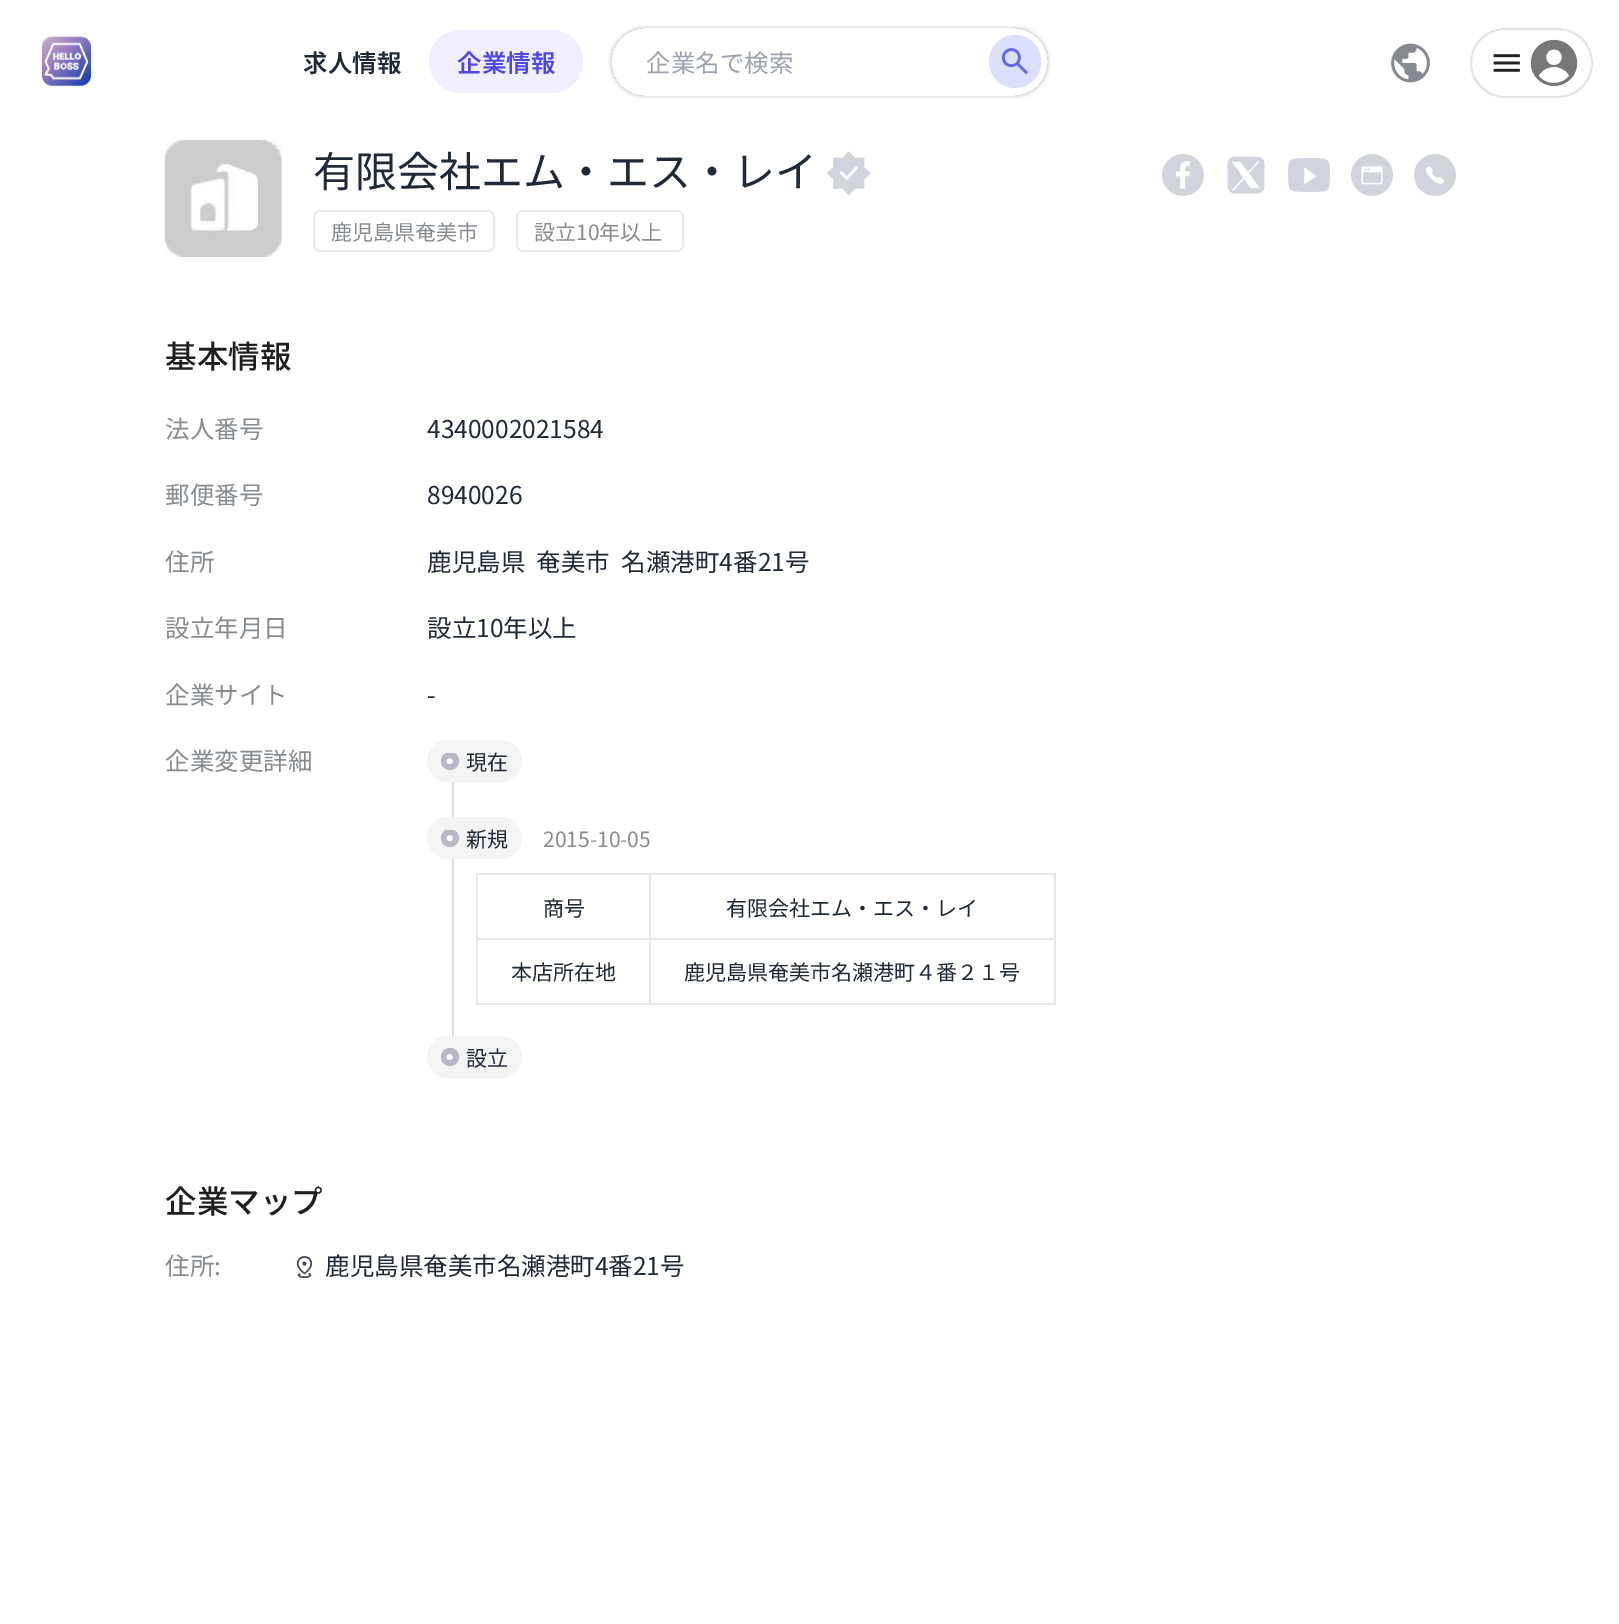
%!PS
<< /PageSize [1619 1624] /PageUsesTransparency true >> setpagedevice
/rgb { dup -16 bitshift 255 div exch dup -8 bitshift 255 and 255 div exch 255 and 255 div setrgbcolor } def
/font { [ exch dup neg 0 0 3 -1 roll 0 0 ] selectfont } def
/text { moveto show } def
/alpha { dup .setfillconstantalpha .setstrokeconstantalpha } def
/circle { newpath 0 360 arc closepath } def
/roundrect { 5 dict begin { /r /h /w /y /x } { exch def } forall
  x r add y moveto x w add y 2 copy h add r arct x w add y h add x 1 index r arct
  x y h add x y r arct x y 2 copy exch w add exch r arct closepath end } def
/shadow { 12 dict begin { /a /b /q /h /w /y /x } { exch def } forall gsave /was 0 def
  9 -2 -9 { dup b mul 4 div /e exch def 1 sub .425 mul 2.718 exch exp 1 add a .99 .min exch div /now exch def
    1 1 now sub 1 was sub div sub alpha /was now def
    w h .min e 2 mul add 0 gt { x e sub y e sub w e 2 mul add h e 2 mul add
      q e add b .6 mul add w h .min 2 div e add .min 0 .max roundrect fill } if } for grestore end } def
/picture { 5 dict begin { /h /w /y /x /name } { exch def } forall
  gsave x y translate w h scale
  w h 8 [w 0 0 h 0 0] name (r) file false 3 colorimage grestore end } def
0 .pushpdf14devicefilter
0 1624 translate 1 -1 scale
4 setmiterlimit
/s1 { /NotoSansJP-SemiBold 24.5 font 16#1F2937 rgb } def
/s2 { /NotoSansJP-SemiBold 24.5 font 16#4F46E5 rgb } def
/s3 { /NotoSansJP-Regular 24.5 font 16#9CA3AF rgb } def
/s4 { /NotoSansJP-Regular 42 font 16#1F2937 rgb } def
/s5 { /NotoSansJP-Regular 21 font 16#868B91 rgb } def
/s6 { /NotoSansJP-Medium 31.5 font 16#1F1F1F rgb } def
/s7 { /NotoSansJP-Regular 24.5 font 16#868B91 rgb } def
/s8 { /NotoSansJP-Regular 24.5 font 16#1F2937 rgb } def
/s9 { /NotoSansJP-Regular 21 font 16#1F2937 rgb } def
16#FFFFFF rgb
0 0 1619 1624 rectfill
(pic1.raw) 42 36 49 50 picture
s1
(求人情報) 303 72 text
16#EFEFFF rgb
429 30 154 63 31.5 roundrect fill
s2
(企業情報) 457 72 text
gsave
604 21 moveto 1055 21 lineto 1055 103 lineto 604 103 lineto closepath 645 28 moveto 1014 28 lineto 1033 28 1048 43 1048 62 curveto 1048 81 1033 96 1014 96 curveto 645 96 lineto 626 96 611 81 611 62 curveto 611 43 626 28 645 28 curveto closepath eoclip newpath
16#C1C1C1 rgb
611 28 437 68 34 2 1 shadow
grestore
s3
(企業名で検索) 646 72 text
16#DBE0FC rgb
989 35 52 53 26 roundrect fill
(pic2.raw) 1001 48 27 27 picture
(pic3.raw) 1391 43 39 40 picture
16#E4E4E4 rgb
2 setlinewidth
1471 29 121 68 34 roundrect stroke
(pic4.raw) 1493 54 27 18 picture
(pic5.raw) 1530 39 48 48 picture
(pic6.raw) 164 140 118 117 picture
s4
(有限会社エム・エス・レイ) 313 187 text
(pic7.raw) 827 151 44 44 picture
16#E9E9E9 rgb
314 211 180 40 6 roundrect stroke
s5
(鹿児島県奄美市) 331 240 text
16#E9E9E9 rgb
517 211 166 40 6 roundrect stroke
s5
(設立10年以上) 534 240 text
(pic8.raw) 1162 154 42 42 picture
(pic9.raw) 1227 156 38 38 picture
(pic10.raw) 1288 158 42 34 picture
(pic11.raw) 1351 154 42 42 picture
(pic12.raw) 1414 154 42 42 picture
s6
(基本情報) 165 368 text
s7
(法人番号) 165 438 text
s8
(4340002021584) 427 438 text
s7
(郵便番号) 165 504 text
s8
(8940026) 427 504 text
s7
(住所) 165 571 text
16#1F2937 rgb
427 571 moveto 6 0 32 (鹿児島県 奄美市 名瀬港町4番21号) widthshow
s7
(設立年月日) 165 637 text
s8
(設立10年以上) 427 637 text
s7
(企業サイト) 165 704 text
s8
(-) 427 704 text
s7
(企業変更詳細) 165 770 text
16#F4F4F4 rgb
427 740 95 42 21 roundrect fill
gsave
441 753 18 17 rectclip
16#B6B8C5 rgb
450 761 9 circle fill
grestore
16#FFFFFF rgb
449.7 761.2 2.9 circle fill
s9
(現在) 466 770 text
16#DEDEE3 rgb
452 782 2 254 rectfill
16#F4F4F4 rgb
427 817 95 42 21 roundrect fill
gsave
441 830 18 17 rectclip
16#B6B8C5 rgb
450 838 9 circle fill
grestore
16#FFFFFF rgb
449.7 838.2 2.9 circle fill
s9
(新規) 466 847 text
s5
(2015-10-05) 543 847 text
16#E5E7EB rgb
649 873 406 2 rectfill
649 938 406 2 rectfill
1054 938 2 67 rectfill
649 1003 406 2 rectfill
649 938 2 67 rectfill
476 938 175 2 rectfill
649 873 2 67 rectfill
476 873 175 2 rectfill
476 1003 175 2 rectfill
476 938 2 67 rectfill
476 873 2 67 rectfill
s9
(商号) 543 916 text
16#E5E7EB rgb
1054 873 2 67 rectfill
s9
(有限会社エム・エス・レイ) 726 916 text
(本店所在地) 511 980 text
(鹿児島県奄美市名瀬港町４番２１号) 684 980 text
16#F4F4F4 rgb
427 1036 95 42 21 roundrect fill
16#B6B8C5 rgb
450 1057 9 circle fill
16#FFFFFF rgb
449.7 1057 2.9 circle fill
s9
(設立) 466 1066 text
s6
(企業マップ) 165 1213 text
s7
(住所:) 165 1275 text
(pic13.raw) 296 1256 17 22 picture
s8
(鹿児島県奄美市名瀬港町4番21号) 325 1275 text
.poppdf14devicefilter showpage
